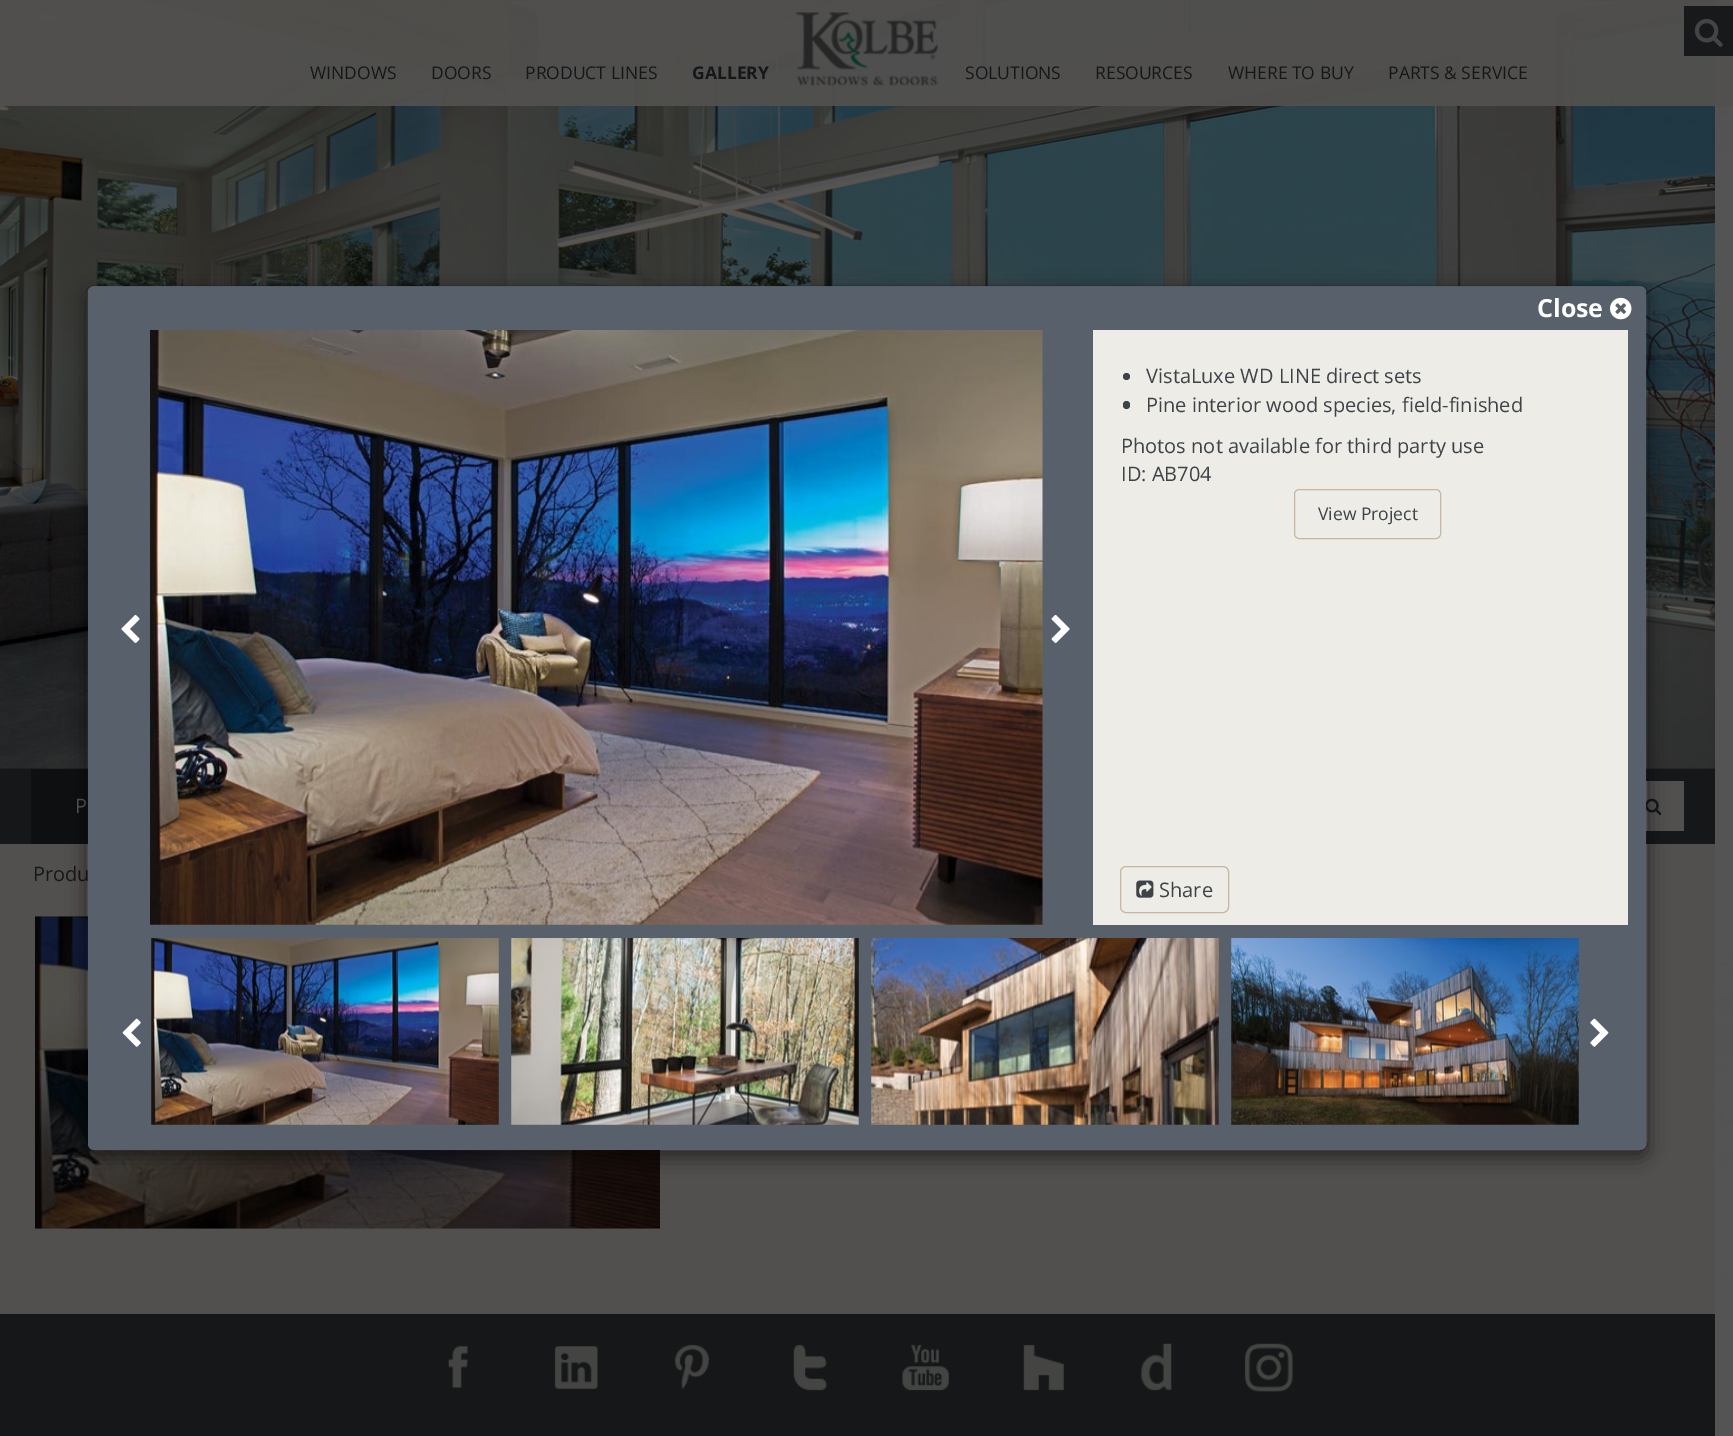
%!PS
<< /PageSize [1733 1436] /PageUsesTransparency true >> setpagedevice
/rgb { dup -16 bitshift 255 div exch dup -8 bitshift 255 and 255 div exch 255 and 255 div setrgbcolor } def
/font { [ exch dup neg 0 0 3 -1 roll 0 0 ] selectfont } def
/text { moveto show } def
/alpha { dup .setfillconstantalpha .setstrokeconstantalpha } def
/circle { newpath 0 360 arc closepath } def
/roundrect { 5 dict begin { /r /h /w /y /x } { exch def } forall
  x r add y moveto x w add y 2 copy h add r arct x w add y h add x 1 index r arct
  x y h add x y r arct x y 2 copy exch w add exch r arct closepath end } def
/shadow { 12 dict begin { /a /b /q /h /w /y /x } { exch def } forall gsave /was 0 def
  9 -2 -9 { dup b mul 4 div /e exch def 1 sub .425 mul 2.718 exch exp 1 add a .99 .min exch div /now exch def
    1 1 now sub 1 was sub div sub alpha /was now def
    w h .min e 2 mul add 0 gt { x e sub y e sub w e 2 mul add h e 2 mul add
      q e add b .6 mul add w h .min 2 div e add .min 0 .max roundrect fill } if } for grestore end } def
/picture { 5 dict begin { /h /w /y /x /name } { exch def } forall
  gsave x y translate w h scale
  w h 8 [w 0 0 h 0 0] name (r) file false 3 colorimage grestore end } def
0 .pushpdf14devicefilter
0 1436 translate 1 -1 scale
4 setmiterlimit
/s1 { /OpenSans-Regular 17.5 font 16#151718 rgb } def
/s2 { /OpenSans-Bold 17.5 font 16#151718 rgb } def
/s3 { /OpenSans-Regular 20 font 16#575757 rgb } def
/s4 { /OpenSans-Regular 20 font 16#151718 rgb } def
/s5 { /OpenSans-Bold 25 font 16#FFFFFF rgb } def
/s6 { /OpenSans-Regular 20 font 16#3E4348 rgb } def
/s7 { /OpenSans-Regular 17.5 font 16#3E4348 rgb } def
16#FFFFFF rgb
0 0 1733 1436 rectfill
(pic1.raw) 1715 0 18 1436 picture
16#0C0C0C rgb
0 0 1715 769 rectfill
(pic4.raw) 0 0 1715 769 picture
0.95 alpha
16#51504E rgb
0 0 1733 106 rectfill
16#151618 rgb
1684 6 49 50 rectfill
1 alpha
(pic2.raw) 1694 18 29 29 picture
s1
(WINDOWS) 310 79 text
(DOORS) 431 79 text
(PRODUCT LINES) 525 79 text
s2
(GALLERY) 692 79 text
(pic3.raw) 796 12 143 74 picture
s1
(SOLUTIONS) 965 79 text
(RESOURCES) 1095 79 text
(WHERE TO BUY) 1228 79 text
(PARTS & SERVICE) 1388 79 text
16#51504E rgb
0 844 1715 470 rectfill
16#151718 rgb
0 769 1715 75 rectfill
16#0D0F11 rgb
31 769 57 75 rectfill
s3
(P) 75 813 text
16#51504E rgb
1646 781 38 50 rectfill
(pic5.raw) 1646 798 16 17 picture
s4
(Produ) 33 881 text
(pic6.raw) 35 916 625 313 picture
gsave
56 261 moveto 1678 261 lineto 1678 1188 lineto 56 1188 lineto closepath 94 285 moveto 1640 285 lineto 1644.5 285 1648 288.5 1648 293 curveto 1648 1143 lineto 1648 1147.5 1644.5 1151 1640 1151 curveto 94 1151 lineto 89.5 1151 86 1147.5 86 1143 curveto 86 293 lineto 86 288.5 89.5 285 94 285 curveto closepath eoclip newpath
16#000000 rgb
86 291 1562 867 8 9.5 0.5 shadow
grestore
16#58616B rgb
88 286 1558 864 6 roundrect fill
0.2 alpha
16#000000 rgb
86.5 285.5 1561 865 7.5 roundrect stroke
1 alpha
s5
(Close) 1537 317 text
(pic7.raw) 1610 297 22 23 picture
16#EDECE6 rgb
1093 330 535 595 rectfill
(pic8.raw) 121 614 19 29 picture
(pic9.raw) 150 330 893 595 picture
(pic10.raw) 1051 614 19 29 picture
16#3E4348 rgb
1126.5 376.5 3.5 circle fill
s6
(VistaLuxe WD LINE direct sets) 1146 383 text
1123 401 7 8 3.5 roundrect fill
(Pine interior wood species, field-finished) 1146 412 text
(Photos not available for third party use) 1121 453 text
(ID: AB704) 1121 481 text
16#C7B79F rgb
1294.5 489.5 146 49 4.5 roundrect stroke
s7
(View Project) 1318 520 text
16#C7B79F rgb
1120.5 866.5 108 46 5.5 roundrect stroke
(pic11.raw) 1136 880 18 18 picture
s6
(Share) 1159 897 text
(pic12.raw) 122 1018 19 29 picture
(pic13.raw) 151 938 348 187 picture
(pic14.raw) 511 938 348 187 picture
(pic15.raw) 871 938 348 187 picture
(pic16.raw) 1231 938 348 187 picture
(pic17.raw) 1590 1018 19 29 picture
16#151718 rgb
0 1314 1715 122 rectfill
(pic18.raw) 448 1346 20 42 picture
(pic19.raw) 554 1346 44 43 picture
(pic20.raw) 674 1344 35 45 picture
(pic21.raw) 793 1344 34 47 picture
(pic22.raw) 902 1344 47 47 picture
(pic23.raw) 1023 1344 41 47 picture
(pic24.raw) 1141 1343 31 48 picture
(pic25.raw) 1244 1343 49 49 picture
.poppdf14devicefilter showpage
